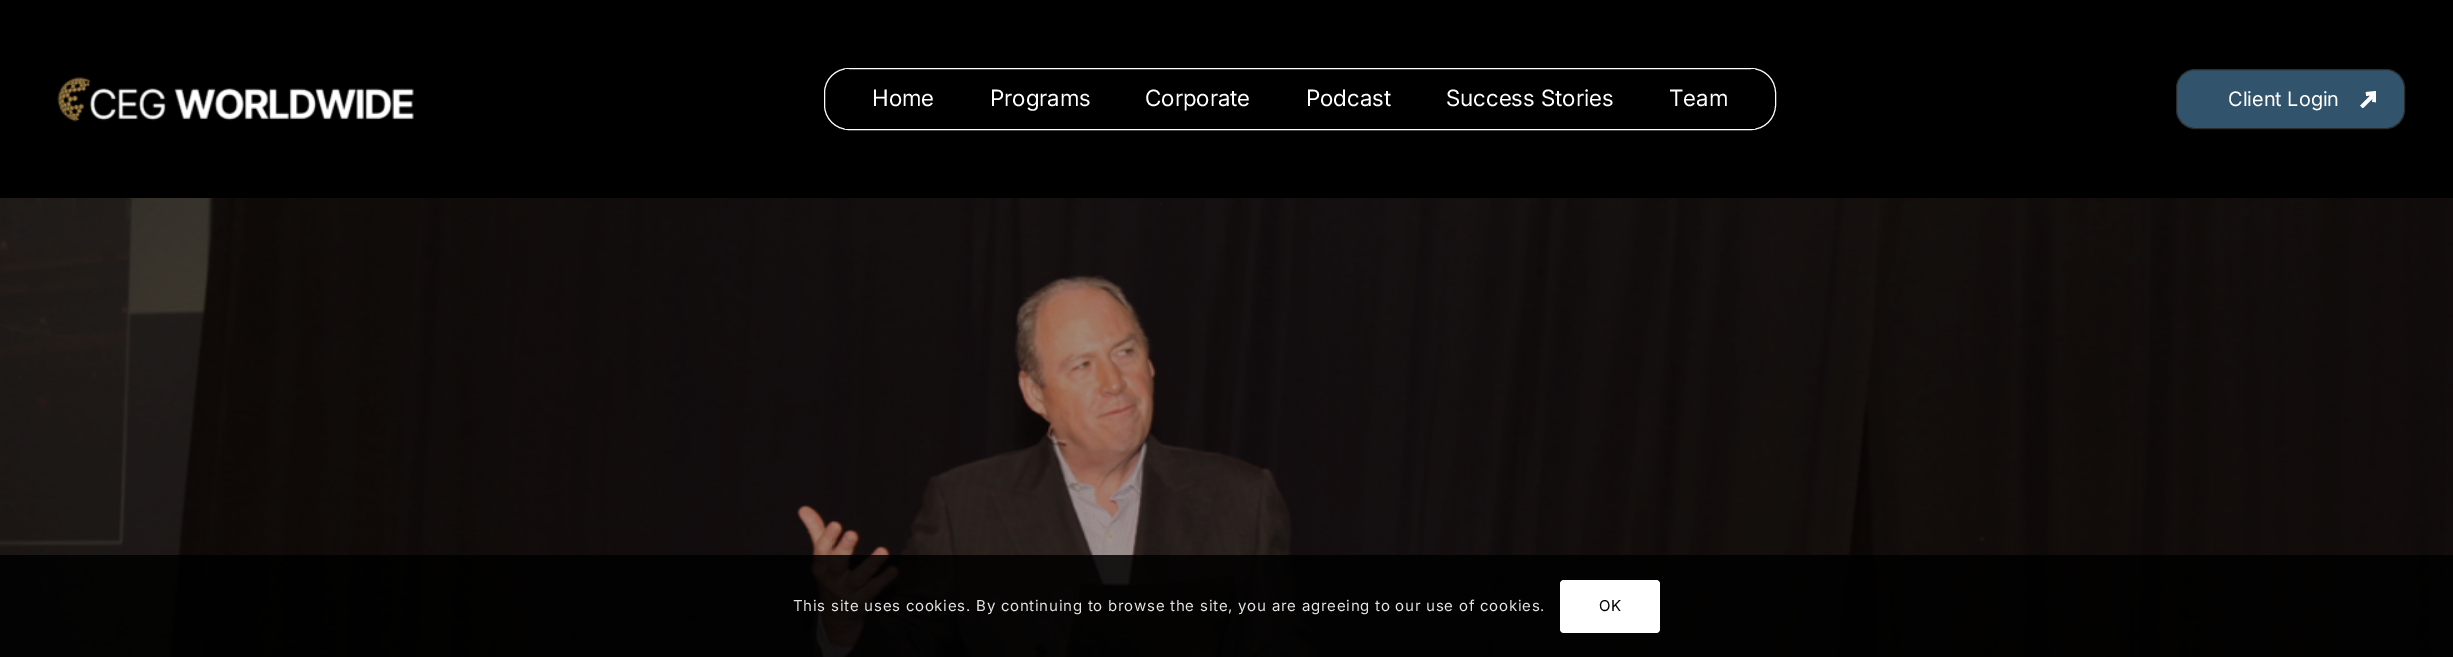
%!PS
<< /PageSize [2453 657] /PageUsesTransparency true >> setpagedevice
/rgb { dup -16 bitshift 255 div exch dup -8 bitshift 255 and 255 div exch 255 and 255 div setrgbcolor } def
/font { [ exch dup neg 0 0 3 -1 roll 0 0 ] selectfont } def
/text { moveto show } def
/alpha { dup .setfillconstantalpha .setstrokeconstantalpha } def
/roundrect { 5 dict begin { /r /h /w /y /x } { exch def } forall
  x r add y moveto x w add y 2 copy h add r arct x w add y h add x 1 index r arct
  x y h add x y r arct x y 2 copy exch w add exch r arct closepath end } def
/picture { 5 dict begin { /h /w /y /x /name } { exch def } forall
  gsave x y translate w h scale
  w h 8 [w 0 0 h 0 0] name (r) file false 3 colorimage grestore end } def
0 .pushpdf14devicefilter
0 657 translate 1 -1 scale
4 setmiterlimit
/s1 { /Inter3-Regular 22.5 font 16#FFFFFF rgb } def
/s2 { /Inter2-Regular 20 font 16#FFFFFF rgb } def
16#FFFFFF rgb
0 0 2453 657 rectfill
16#000000 rgb
0 0 2453 198 rectfill
(pic1.raw) 57 77 357 45 picture
16#FFFFFF rgb
824.5 68.5 951 61 24.5 roundrect stroke
16#000000 rgb
845 69 4 60 rectfill
s1
(Home) 872 106 text
(Programs) 990 106 text
(Corporate) 1145 106 text
(Podcast) 1306 106 text
(Success Stories) 1446 106 text
16#000000 rgb
1751 69 4 60 rectfill
s1
(Team) 1669 106 text
16#32536C rgb
2176.5 69.5 228 59 18.5 roundrect gsave fill grestore
16#2B2B2B rgb
stroke
s2
(Client Login) 2228 106 text
gsave
2360 91 16 17 rectclip
3.8 setlinewidth
2361.5 107 moveto 2375.5 93 lineto 2366 94 moveto 2375.5 93 lineto 2374 102 lineto stroke
grestore
(pic2.raw) 0 198 2453 459 picture
0.85 alpha
16#000000 rgb
0 555 2453 102 rectfill
/Inter-Regular 15 font
1 alpha
16#E6E6E6 rgb
793 611 moveto 0.75 0 (This site uses cookies. By continuing to browse the site, you are agreeing to our use of cookies.) ashow
16#FFFFFF rgb
1560 580 100 53 4 roundrect fill
16#000000 rgb
1599 611 moveto 0.75 0 (OK) ashow
.poppdf14devicefilter showpage
